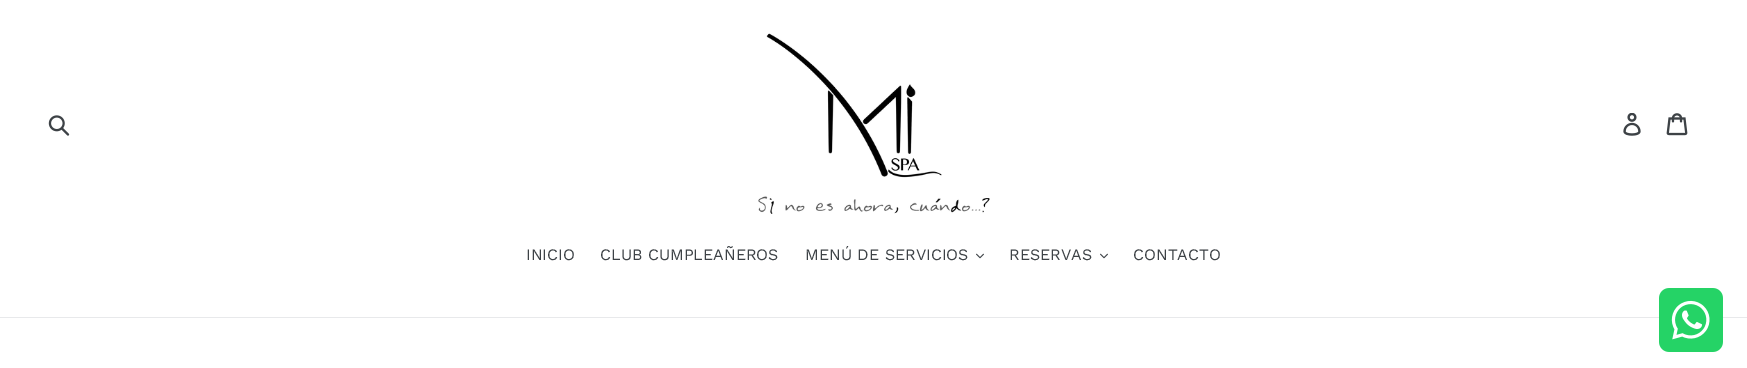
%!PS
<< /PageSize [1747 368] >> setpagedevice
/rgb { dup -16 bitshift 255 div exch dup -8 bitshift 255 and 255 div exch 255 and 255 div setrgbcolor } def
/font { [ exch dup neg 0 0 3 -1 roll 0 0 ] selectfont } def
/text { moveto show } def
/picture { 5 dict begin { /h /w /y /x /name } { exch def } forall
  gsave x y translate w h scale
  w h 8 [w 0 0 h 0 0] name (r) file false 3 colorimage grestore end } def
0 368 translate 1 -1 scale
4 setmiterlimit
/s1 { /WorkSans-Regular 16 font 16#3D4246 rgb } def
16#FFFFFF rgb
0 0 1747 368 rectfill
(pic1.raw) 48 115 22 21 picture
(pic2.raw) 758 33 232 181 picture
(pic3.raw) 1623 113 18 23 picture
(pic4.raw) 1666 113 22 23 picture
16#E8E9EB rgb
0 317 1747 1 rectfill
s1
(INICIO) 526 260 text
(CLUB CUMPLEAÑEROS) 600 260 text
(MENÚ DE SERVICIOS) 805 260 text
(pic5.raw) 976 253 8 6 picture
(RESERVAS) 1009 260 text
(pic5.raw) 1100 253 8 6 picture
(CONTACTO) 1133 260 text
(pic6.raw) 1659 288 64 64 picture
showpage
